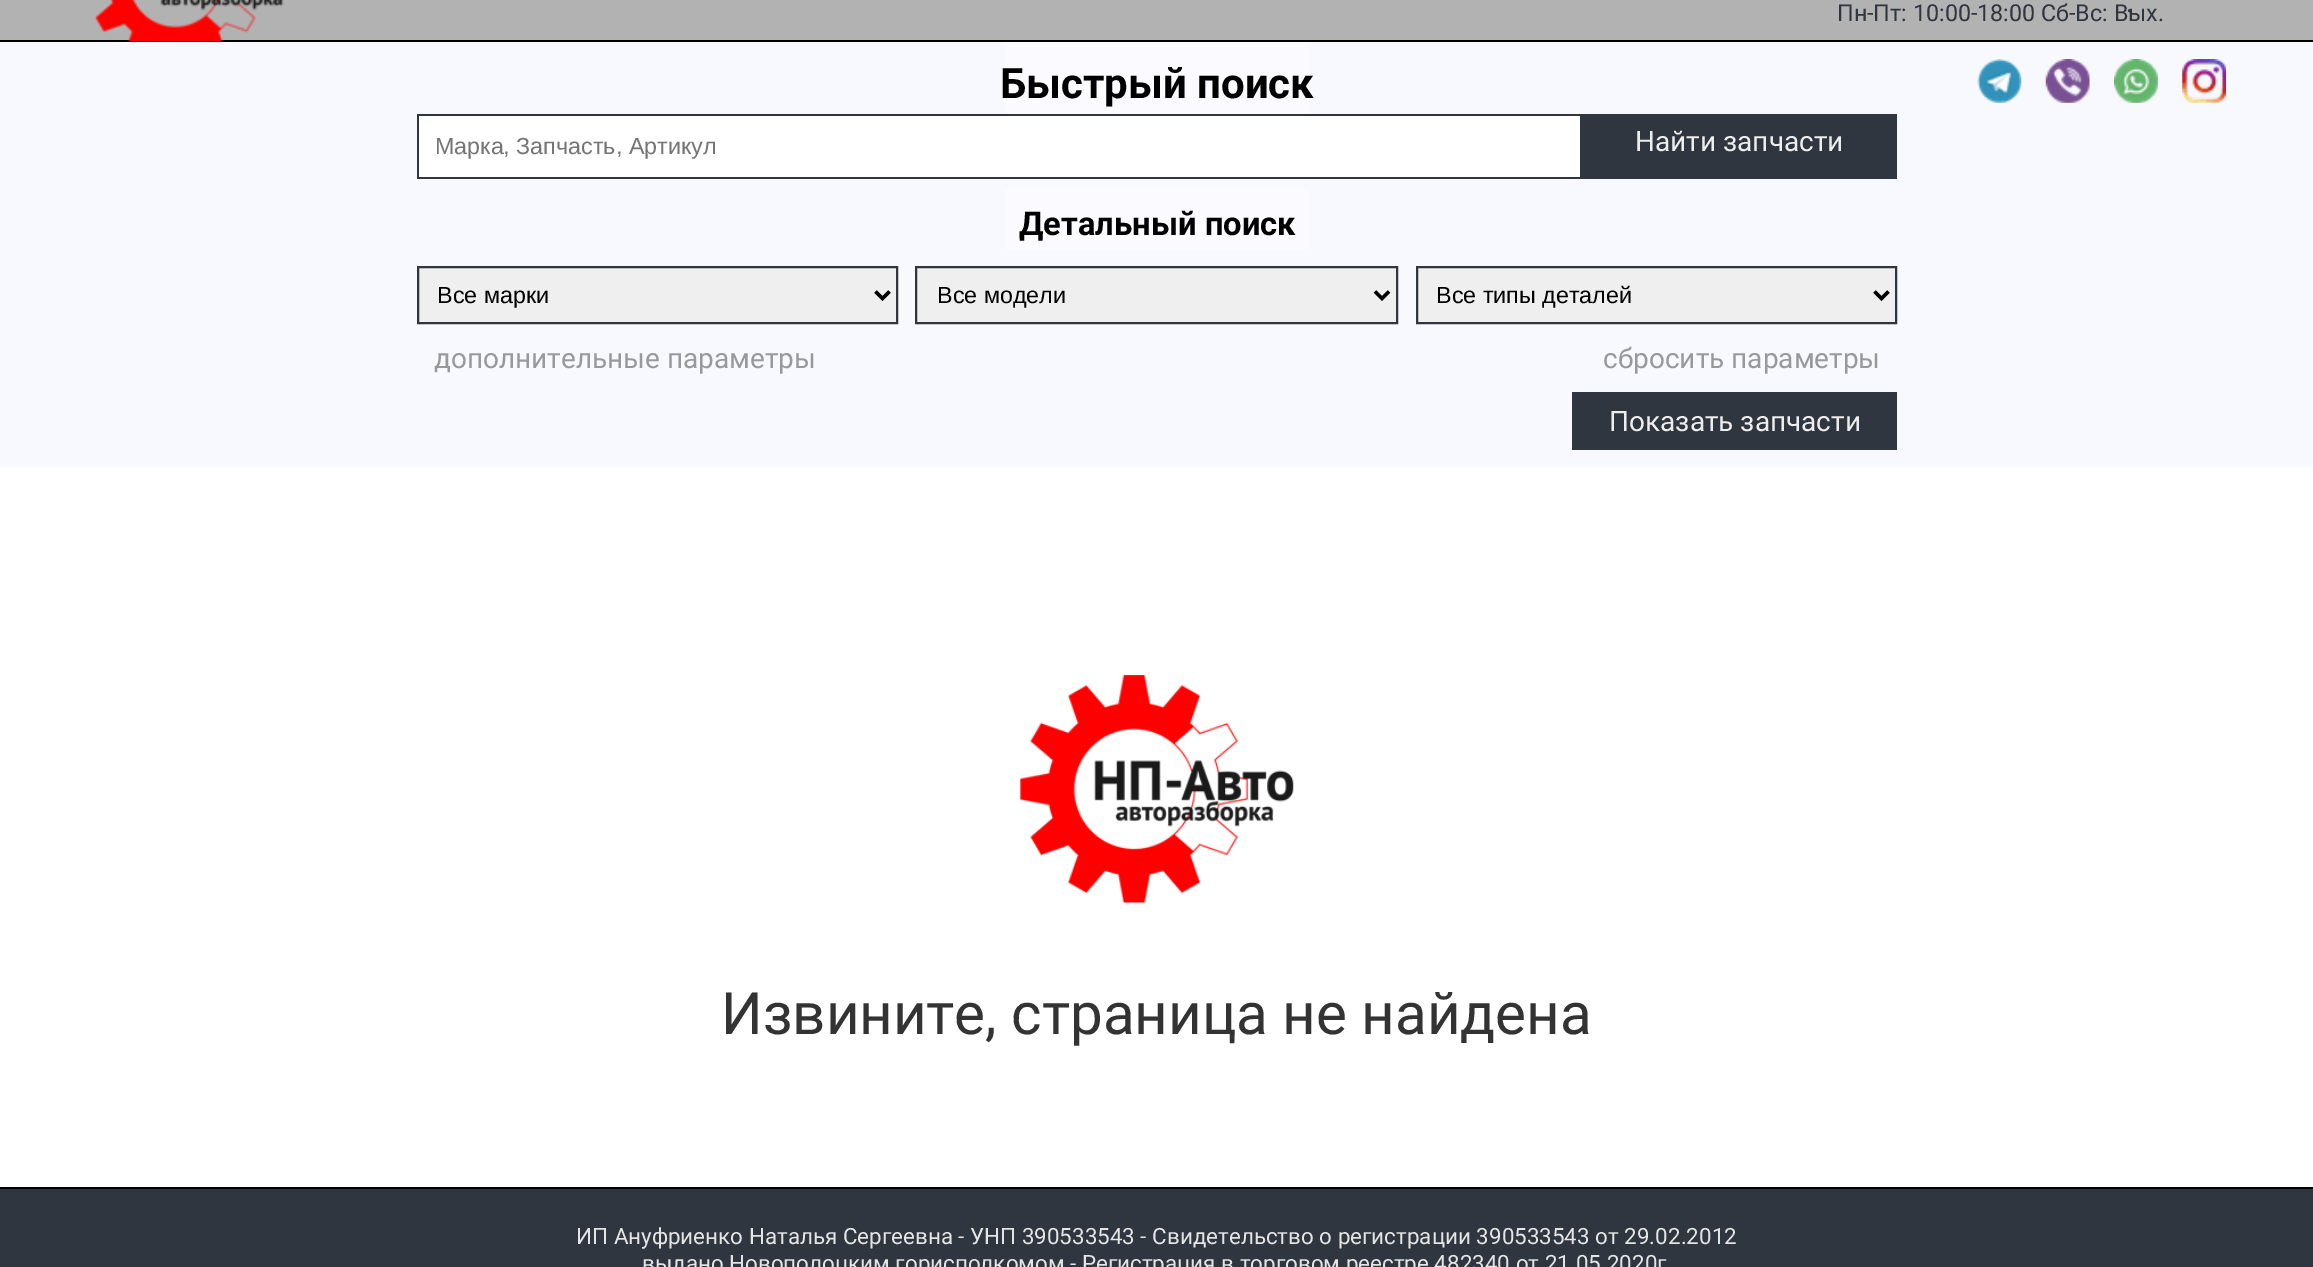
%!PS
<< /PageSize [2313 1267] >> setpagedevice
/rgb { dup -16 bitshift 255 div exch dup -8 bitshift 255 and 255 div exch 255 and 255 div setrgbcolor } def
/font { [ exch dup neg 0 0 3 -1 roll 0 0 ] selectfont } def
/text { moveto show } def
/picture { 5 dict begin { /h /w /y /x /name } { exch def } forall
  gsave x y translate w h scale
  w h 8 [w 0 0 h 0 0] name (r) file false 3 colorimage grestore end } def
0 1267 translate 1 -1 scale
4 setmiterlimit
/s1 { /Roboto-Regular 28 font 16#2F3640 rgb } def
/s2 { /Roboto-Regular 23.3 font 16#2F3640 rgb } def
/s3 { /Roboto-Bold 42 font 16#000000 rgb } def
/s4 { /LiberationSans-Regular 23.3 font 16#757575 rgb } def
/s5 { /Roboto-Regular 28 font 16#EEEEEE rgb } def
/s6 { /Roboto-Bold 32.75 font 16#000000 rgb } def
/s7 { /LiberationSans-Regular 23.3 font 16#000000 rgb } def
/s8 { /Roboto-Regular 28 font 16#999999 rgb } def
/s9 { /Roboto-Regular 58.3 font 16#333333 rgb } def
/s10 { /Roboto-Regular 22.4 font 16#E5E5E5 rgb } def
16#FFFFFF rgb
0 0 2313 1267 rectfill
16#B2B2B2 rgb
0 0 2313 40 rectfill
16#000000 rgb
0 40 2313 2 rectfill
(pic1.raw) 94 0 190 42 picture
s1
(.) 2126 12 text
s2
(Пн-Пт: 10:00-18:00 Сб-Вс: Вых.) 1837 21 text
16#F8F9FF rgb
0 42 2313 425 rectfill
(pic2.raw) 1977 59 45 44 picture
(pic3.raw) 2045 59 45 44 picture
(pic4.raw) 2114 59 44 44 picture
(pic5.raw) 2182 59 44 44 picture
gsave 1005 42 moveto 1309 42 lineto 1309 114 lineto 1005 114 lineto closepath clip newpath
<< /ShadingType 2 /ColorSpace /DeviceRGB /Coords [18 78 2296 78] /Extend [true true] /Function << /FunctionType 3 /Domain [0 1] /Functions [<< /FunctionType 2 /Domain [0 1] /C0 [0.973 0.973 1] /C1 [0.973 0.973 1] /N 1 >> << /FunctionType 2 /Domain [0 1] /C0 [0.973 0.973 1] /C1 [0.984 0.984 1] /N 1 >> << /FunctionType 2 /Domain [0 1] /C0 [0.984 0.984 1] /C1 [0.973 0.973 1] /N 1 >> << /FunctionType 2 /Domain [0 1] /C0 [0.973 0.973 1] /C1 [0.973 0.973 1] /N 1 >>] /Bounds [0.1 0.5 0.9] /Encode [0 1 0 1 0 1 0 1] >> >> shfill grestore
s3
(Быстрый поиск) 1000 98 text
16#FFFFFF rgb
419 116 1161 61 rectfill
16#2F3640 rgb
417 114 1163 2 rectfill
417 177 1163 2 rectfill
417 114 2 65 rectfill
s4
(Марка, Запчасть, Артикул) 435 154 text
16#2F3640 rgb
1580 114 317 65 rectfill
s5
(Найти запчасти) 1635 151 text
gsave 1005 187 moveto 1309 187 lineto 1309 249 lineto 1005 249 lineto closepath clip newpath
<< /ShadingType 2 /ColorSpace /DeviceRGB /Coords [18 218 2296 218] /Extend [true true] /Function << /FunctionType 3 /Domain [0 1] /Functions [<< /FunctionType 2 /Domain [0 1] /C0 [0.973 0.973 1] /C1 [0.973 0.973 1] /N 1 >> << /FunctionType 2 /Domain [0 1] /C0 [0.973 0.973 1] /C1 [0.984 0.984 1] /N 1 >> << /FunctionType 2 /Domain [0 1] /C0 [0.984 0.984 1] /C1 [0.973 0.973 1] /N 1 >> << /FunctionType 2 /Domain [0 1] /C0 [0.973 0.973 1] /C1 [0.973 0.973 1] /N 1 >>] /Bounds [0.1 0.5 0.9] /Encode [0 1 0 1 0 1 0 1] >> >> shfill grestore
s6
(Детальный поиск) 1019 235 text
16#EFEFEF rgb
418 267 moveto 897 267 lineto 897 323 lineto 418 323 lineto closepath gsave fill grestore
16#2F3640 rgb
2 setlinewidth
stroke
16#000000 rgb
3.5 setlinewidth
875.5 291.5 moveto 882.5 298.5 lineto 889.5 291.5 lineto stroke
s7
(Все марки) 437 303 text
16#EFEFEF rgb
916 267 moveto 1397 267 lineto 1397 323 lineto 916 323 lineto closepath gsave fill grestore
16#2F3640 rgb
2 setlinewidth
stroke
16#000000 rgb
3.5 setlinewidth
1375 291.5 moveto 1382 298.5 lineto 1389 291.5 lineto stroke
(Все модели) 937 303 text
16#EFEFEF rgb
1417 267 moveto 1896 267 lineto 1896 323 lineto 1417 323 lineto closepath gsave fill grestore
16#2F3640 rgb
2 setlinewidth
stroke
16#000000 rgb
3.5 setlinewidth
1874.5 291.5 moveto 1881.5 298.5 lineto 1888.5 291.5 lineto stroke
(Все типы деталей) 1436 303 text
s8
(дополнительные параметры) 434 368 text
(сбросить параметры) 1603 368 text
16#2F3640 rgb
1572 392 325 58 rectfill
s5
(Показать запчасти) 1609 431 text
(pic6.raw) 1020 675 274 228 picture
s9
(Извините, страница не найдена) 721 1034 text
16#2F3640 rgb
0 1189 2313 78 rectfill
16#000000 rgb
0 1187 2313 2 rectfill
s10
(ИП Ануфриенко Наталья Сергеевна - УНП 390533543 - Свидетельство о регистрации 390533543 от 29.02.2012) 576 1244 text
(выдано Новополоцким горисполкомом - Регистрация в торговом реестре 482340 от 21.05.2020г) 642 1271 text
showpage
